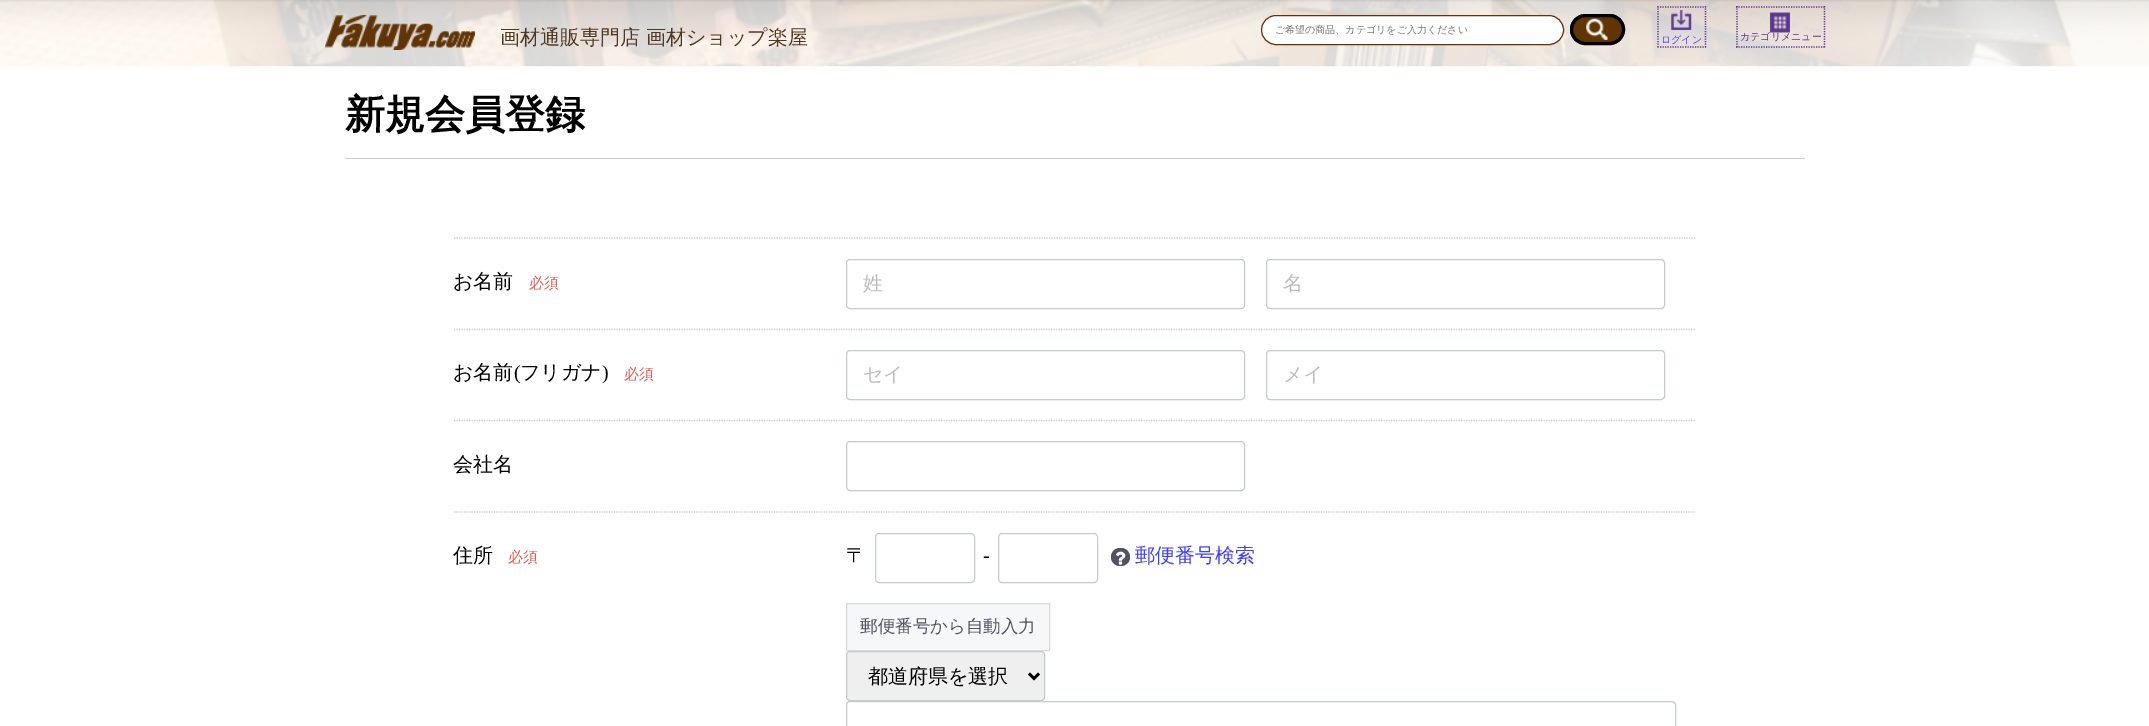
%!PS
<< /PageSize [2149 726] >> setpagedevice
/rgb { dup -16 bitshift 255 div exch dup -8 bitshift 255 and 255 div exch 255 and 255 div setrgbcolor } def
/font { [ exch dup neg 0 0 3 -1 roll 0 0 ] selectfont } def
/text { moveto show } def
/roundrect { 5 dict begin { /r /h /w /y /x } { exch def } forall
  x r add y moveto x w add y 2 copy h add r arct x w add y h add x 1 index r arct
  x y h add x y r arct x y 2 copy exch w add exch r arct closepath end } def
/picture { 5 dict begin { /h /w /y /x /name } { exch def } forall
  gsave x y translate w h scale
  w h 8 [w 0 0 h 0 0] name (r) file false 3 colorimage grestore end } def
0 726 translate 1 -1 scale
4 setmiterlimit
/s1 { /WenQuanYiZenHei-Medium 20 font 16#50371F rgb } def
/s2 { /WenQuanYiZenHei-Medium 10 font 16#757575 rgb } def
/s3 { /WenQuanYiZenHei-Medium 10 font 16#3F3FFF rgb } def
/s4 { /WenQuanYiZenHei-Medium 10 font 16#59338D rgb } def
/s5 { /WenQuanYiZenHei-Bold 40 font 16#000000 rgb } def
/s6 { /WenQuanYiZenHei-Medium 20 font 16#000000 rgb } def
/s7 { /WenQuanYiZenHei-Medium 15 font 16#DE5D50 rgb } def
/s8 { /WenQuanYiZenHei-Medium 20 font 16#BBBBBB rgb } def
/s9 { /LiberationSerif-Regular 20 font 16#000000 rgb } def
/s10 { /WenQuanYiZenHei-Medium 20 font 16#3F3FFF rgb } def
/s11 { /WenQuanYiZenHei-Medium 17.5 font 16#525263 rgb } def
16#FFFFFF rgb
0 0 2149 726 rectfill
(pic1.raw) 0 0 2149 67 picture
(pic2.raw) 325 15 150 35 picture
s1
(画材通販専門店 画材ショップ楽屋) 500 44 text
16#FFFFFF rgb
1261.5 15.5 302 29 14.5 roundrect gsave fill grestore
16#613404 rgb
stroke
s2
(ご希望の商品、カテゴリをご入力ください) 1275 33 text
16#613404 rgb
1570 14 55 31 15.5 roundrect fill
(pic3.raw) 1586 18 22 22 picture
16#000000 rgb
3 setlinewidth
1571.5 15.5 52 28 14 roundrect stroke
16#59338D rgb
1.2 setlinewidth
[1.25 1.25] 0 setdash
1657.5 7 moveto 1706 7 lineto 1705.5 6 moveto 1705.5 47.5 lineto 1657.5 47 moveto 1706 47 lineto 1658 6 moveto 1658 47.5 lineto stroke
(pic4.raw) 1671 10 21 20 picture
s3
(ログイン) 1661 43 text
16#59338D rgb
1736 7 moveto 1825 7 lineto stroke
1824.5 6 moveto 1824.5 47.5 lineto stroke
1736 47 moveto 1825 47 lineto stroke
1737 6 moveto 1737 47.5 lineto stroke
(pic5.raw) 1770 12 20 21 picture
(カテゴリメニュー) 1740 40 text
16#CCCCCC rgb
345 158 1460 1 rectfill
s5
(新規会員登録) 345 128 text
16#CCCCCC rgb
454 238 moveto 1696 238 lineto stroke
454 329.5 moveto 826 329.5 lineto stroke
s6
(お名前) 453 288 text
s7
(必須) 529 288 text
16#CCCCCC rgb
826 329.5 moveto 1696 329.5 lineto stroke
16#C4CCCE rgb
1 setlinewidth
[] 0 setdash
846.5 259.5 398 49 3.5 roundrect stroke
s8
(姓) 863 290 text
16#C4CCCE rgb
1266.5 259.5 398 49 3.5 roundrect stroke
s8
(名) 1283 290 text
16#CCCCCC rgb
1.2 setlinewidth
[1.25 1.25] 0 setdash
454 420.5 moveto 826 420.5 lineto stroke
s6
(お名前) 453 379 text
s9
(\() 514 379 text
s6
(フリガナ) 520 379 text
s9
(\)) 602 379 text
s7
(必須) 624 379 text
16#CCCCCC rgb
826 420.5 moveto 1696 420.5 lineto stroke
16#C4CCCE rgb
1 setlinewidth
[] 0 setdash
846.5 350.5 398 49 3.5 roundrect stroke
s8
(セイ) 863 381 text
16#C4CCCE rgb
1266.5 350.5 398 49 3.5 roundrect stroke
s8
(メイ) 1283 381 text
16#CCCCCC rgb
1.2 setlinewidth
[1.25 1.25] 0 setdash
454 512 moveto 826 512 lineto stroke
s6
(会社名) 453 471 text
16#CCCCCC rgb
826 512 moveto 1696 512 lineto stroke
16#C4CCCE rgb
1 setlinewidth
[] 0 setdash
846.5 441.5 398 49 3.5 roundrect stroke
s6
(住所) 453 562 text
s7
(必須) 508 562 text
s6
(〒) 846 562 text
16#C4CCCE rgb
875.5 533.5 99 49 3.5 roundrect stroke
s9
(-) 983 562 text
16#C4CCCE rgb
998.5 533.5 99 49 3.5 roundrect stroke
16#525263 rgb
1111 548 19 18 9 roundrect fill
(pic6.raw) 1116 551 10 14 picture
s10
(郵便番号検索) 1135 562 text
16#F5F7F8 rgb
846.5 603.5 moveto 1049.5 603.5 lineto 1049.5 650.5 lineto 846.5 650.5 lineto closepath gsave fill grestore
16#D7DADD rgb
stroke
s11
(郵便番号から自動入力) 860 632 text
16#EFEFEF rgb
846.5 651.5 198 49 3.5 roundrect gsave fill grestore
16#C4CCCE rgb
stroke
16#000000 rgb
2.5 setlinewidth
1029 673.5 moveto 1034 678.5 lineto 1039 673.5 lineto stroke
s6
(都道府県を選択) 868 683 text
16#C4CCCE rgb
1 setlinewidth
846.5 701.5 829 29 3.5 roundrect stroke
showpage
